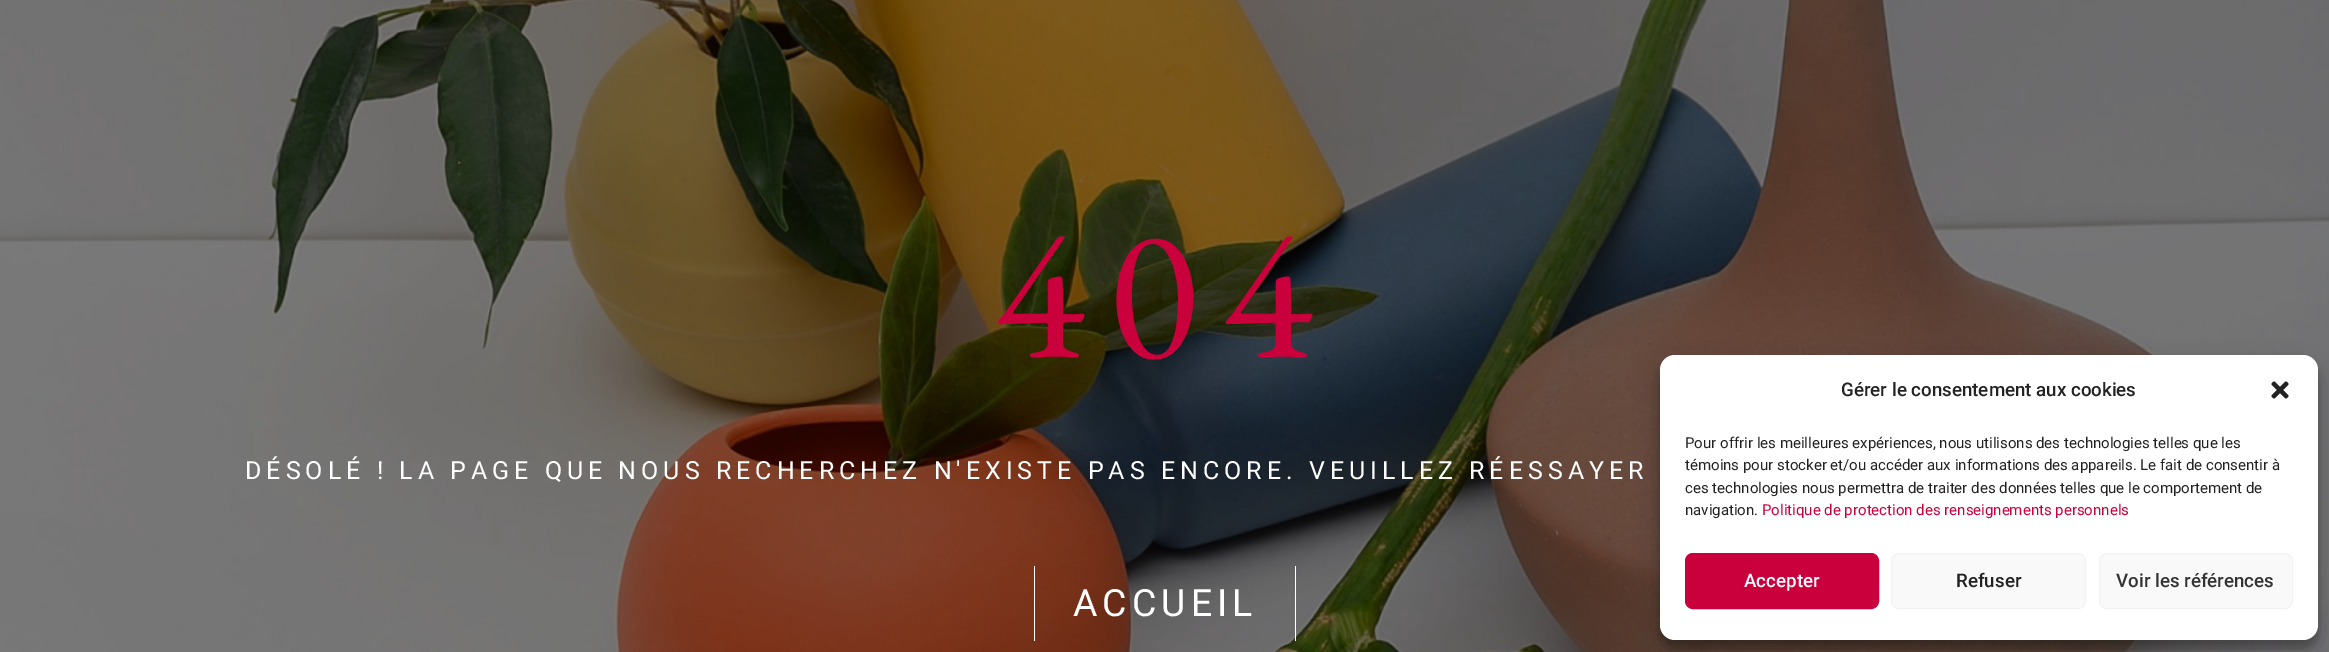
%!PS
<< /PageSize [2329 652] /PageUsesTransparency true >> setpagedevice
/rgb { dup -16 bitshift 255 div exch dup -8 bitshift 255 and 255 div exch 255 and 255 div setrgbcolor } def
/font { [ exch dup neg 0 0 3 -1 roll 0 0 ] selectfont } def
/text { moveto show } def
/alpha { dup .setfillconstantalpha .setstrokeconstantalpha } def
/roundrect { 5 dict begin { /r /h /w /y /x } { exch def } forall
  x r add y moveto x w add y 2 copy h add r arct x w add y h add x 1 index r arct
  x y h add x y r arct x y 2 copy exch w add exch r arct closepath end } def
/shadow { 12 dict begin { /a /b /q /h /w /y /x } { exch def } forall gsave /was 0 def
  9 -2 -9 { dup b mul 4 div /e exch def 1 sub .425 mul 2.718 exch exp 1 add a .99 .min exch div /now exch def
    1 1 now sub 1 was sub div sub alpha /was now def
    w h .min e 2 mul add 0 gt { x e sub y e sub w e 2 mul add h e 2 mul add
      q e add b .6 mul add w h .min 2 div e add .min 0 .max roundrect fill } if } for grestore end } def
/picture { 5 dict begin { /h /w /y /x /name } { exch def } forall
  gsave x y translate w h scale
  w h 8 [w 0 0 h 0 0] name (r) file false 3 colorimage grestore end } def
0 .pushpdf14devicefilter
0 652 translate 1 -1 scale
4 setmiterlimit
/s1 { /Roboto-Medium 18.75 font 16#222222 rgb } def
/s2 { /Roboto-Regular 15 font 16#222222 rgb } def
/s3 { /Roboto-Regular 15 font 16#CA003D rgb } def
/s4 { /Roboto-Medium 18.75 font 16#FFFFFF rgb } def
/s5 { /Roboto-Medium 18.75 font 16#333333 rgb } def
16#FFFFFF rgb
0 0 2329 652 rectfill
(pic1.raw) 0 0 2329 652 picture
/EBGaramond-Regular 188 font
16#CA003D rgb
994 357 moveto 24 0 (404) ashow
/Roboto-Regular 25 font
16#FFFFFF rgb
245 479 moveto 5 0 (DÉSOLÉ ! LA PAGE QUE NOUS RECHERCHEZ N'EXISTE PAS ENCORE. VEUILLEZ RÉESSAYER) ashow
1295 566 1 75 rectfill
1034 566 1 75 rectfill
/Roboto-Regular 37.5 font
1073 616 moveto 5 0 (ACCUEIL) ashow
16#000000 rgb
1660 363 658 285 15 4 0.23 shadow
1660 368 658 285 15 12.5 0.19 shadow
16#FFFFFF rgb
1660 355 658 285 15 roundrect fill
s1
(Gérer le consentement aux cookies) 1841 396 text
(pic2.raw) 2271 381 18 18 picture
s2
(Pour offrir les meilleures expériences, nous utilisons des technologies telles que les) 1685 448 text
(témoins pour stocker et/ou accéder aux informations des appareils. Le fait de consentir à) 1685 470 text
(ces technologies nous permettra de traiter des données telles que le comportement de) 1685 493 text
(navigation.) 1685 515 text
s3
(Politique de protection des renseignements personnels) 1762 515 text
1685.5 553.5 193 55 7.5 roundrect gsave fill grestore
stroke
s4
(Accepter) 1744 587 text
16#F9F9F9 rgb
1891.5 553.5 194 55 7.5 roundrect gsave fill grestore
16#F2F2F2 rgb
stroke
s1
(Refuser) 1956 587 text
16#F9F9F9 rgb
2099.5 553.5 193 55 7.5 roundrect gsave fill grestore
16#F2F2F2 rgb
stroke
s5
(Voir les références) 2116 587 text
.poppdf14devicefilter showpage
